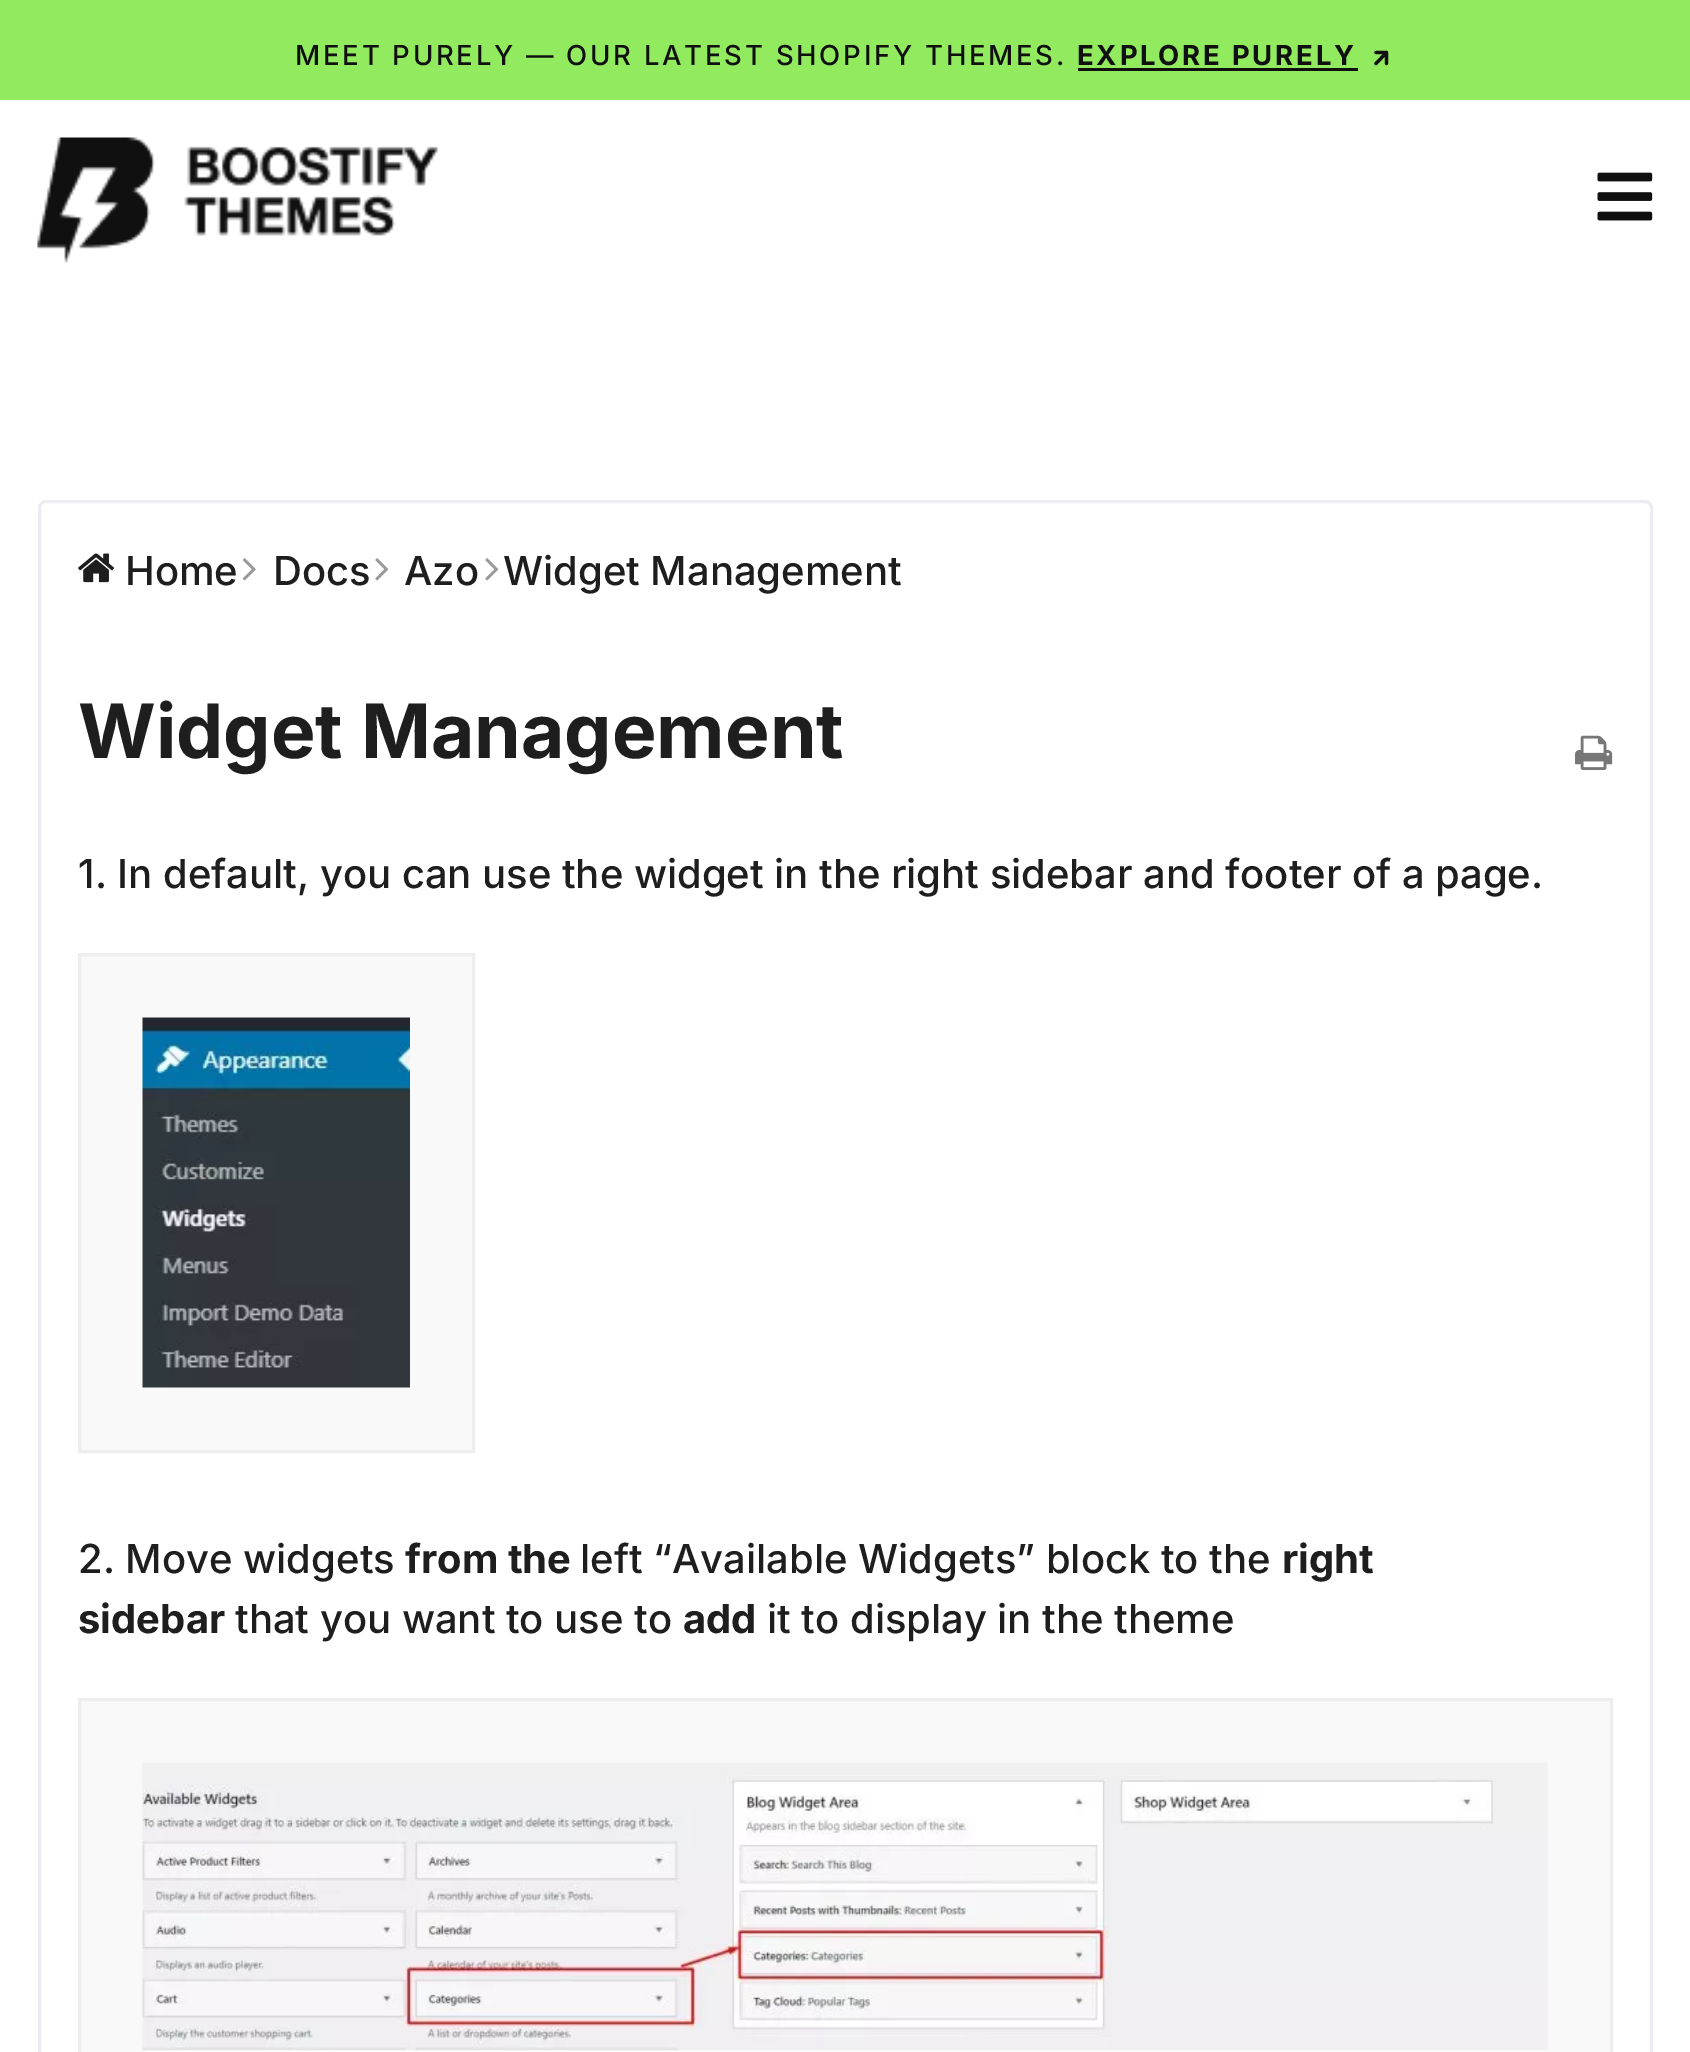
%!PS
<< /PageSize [1690 2052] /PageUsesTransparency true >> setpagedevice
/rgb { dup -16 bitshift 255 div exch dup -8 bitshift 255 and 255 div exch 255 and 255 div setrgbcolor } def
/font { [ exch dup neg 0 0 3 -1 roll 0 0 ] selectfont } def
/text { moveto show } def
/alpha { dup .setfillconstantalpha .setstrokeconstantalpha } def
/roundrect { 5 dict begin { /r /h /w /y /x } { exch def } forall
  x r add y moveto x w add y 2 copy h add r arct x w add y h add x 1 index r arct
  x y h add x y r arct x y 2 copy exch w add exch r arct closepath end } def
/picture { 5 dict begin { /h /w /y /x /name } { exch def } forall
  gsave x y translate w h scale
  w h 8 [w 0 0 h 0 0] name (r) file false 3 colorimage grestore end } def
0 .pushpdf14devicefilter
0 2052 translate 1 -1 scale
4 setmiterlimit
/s1 { /Inter-Medium 40 font 16#1E1E1E rgb } def
/s2 { /Inter-Bold 75 font 16#1E1E1E rgb } def
/s3 { /Inter-Bold 40 font 16#1E1E1E rgb } def
16#FFFFFF rgb
0 0 1690 2052 rectfill
16#92EB5F rgb
0 0 1690 100 rectfill
/Inter-Medium 27.5 font
16#101011 rgb
295 65 moveto 2.75 0 (MEET PURELY — OUR LATEST SHOPIFY THEMES.) ashow
/Inter-Bold 27.5 font
1077 65 moveto 2.75 0 (EXPLORE PURELY) ashow
1078 68 280 3 rectfill
3.2 setlinewidth
1 setlinecap
1 setlinejoin
1376 63.5 moveto 1386.5 52.5 lineto 1376 52.5 moveto 1386.5 52.5 lineto 1386.5 63.5 lineto stroke
(pic1.raw) 37 137 401 126 picture
(pic2.raw) 1597 172 56 49 picture
0.7 alpha
16#E2E6EB rgb
3 setlinewidth
0 setlinecap
0 setlinejoin
39.5 501.5 1612 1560 6.5 roundrect stroke
1 alpha
(pic3.raw) 78 553 36 30 picture
s1
(Home) 125 585 text
(pic4.raw) 242 558 14 23 picture
(Docs) 273 585 text
(pic5.raw) 375 558 14 23 picture
(Azo) 404 585 text
(pic5.raw) 485 558 14 23 picture
(Widget Management) 503 585 text
s2
(Widget Management) 78 758 text
(pic6.raw) 1575 735 38 35 picture
s1
(1. In default, you can use the widget in the right sidebar and footer of a page.) 78 888 text
16#F9F9F9 rgb
79.5 954.5 moveto 473.5 954.5 lineto 473.5 1451.5 lineto 79.5 1451.5 lineto closepath gsave fill grestore
16#EEEEEE rgb
stroke
(pic7.raw) 142 1017 268 371 picture
s1
(2. Move widgets) 78 1573 text
s3
(from the) 405 1573 text
s1
(left “Available Widgets” block to the) 580 1573 text
s3
(right) 1282 1573 text
(sidebar) 78 1633 text
s1
(that you want to use to) 235 1633 text
s3
(add) 683 1633 text
s1
(it to display in the theme) 767 1633 text
16#F9F9F9 rgb
79.5 1699.5 moveto 1611.5 1699.5 lineto 1611.5 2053.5 lineto 79.5 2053.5 lineto closepath gsave fill grestore
16#EEEEEE rgb
stroke
(pic8.raw) 142 1762 1406 288 picture
.poppdf14devicefilter showpage
